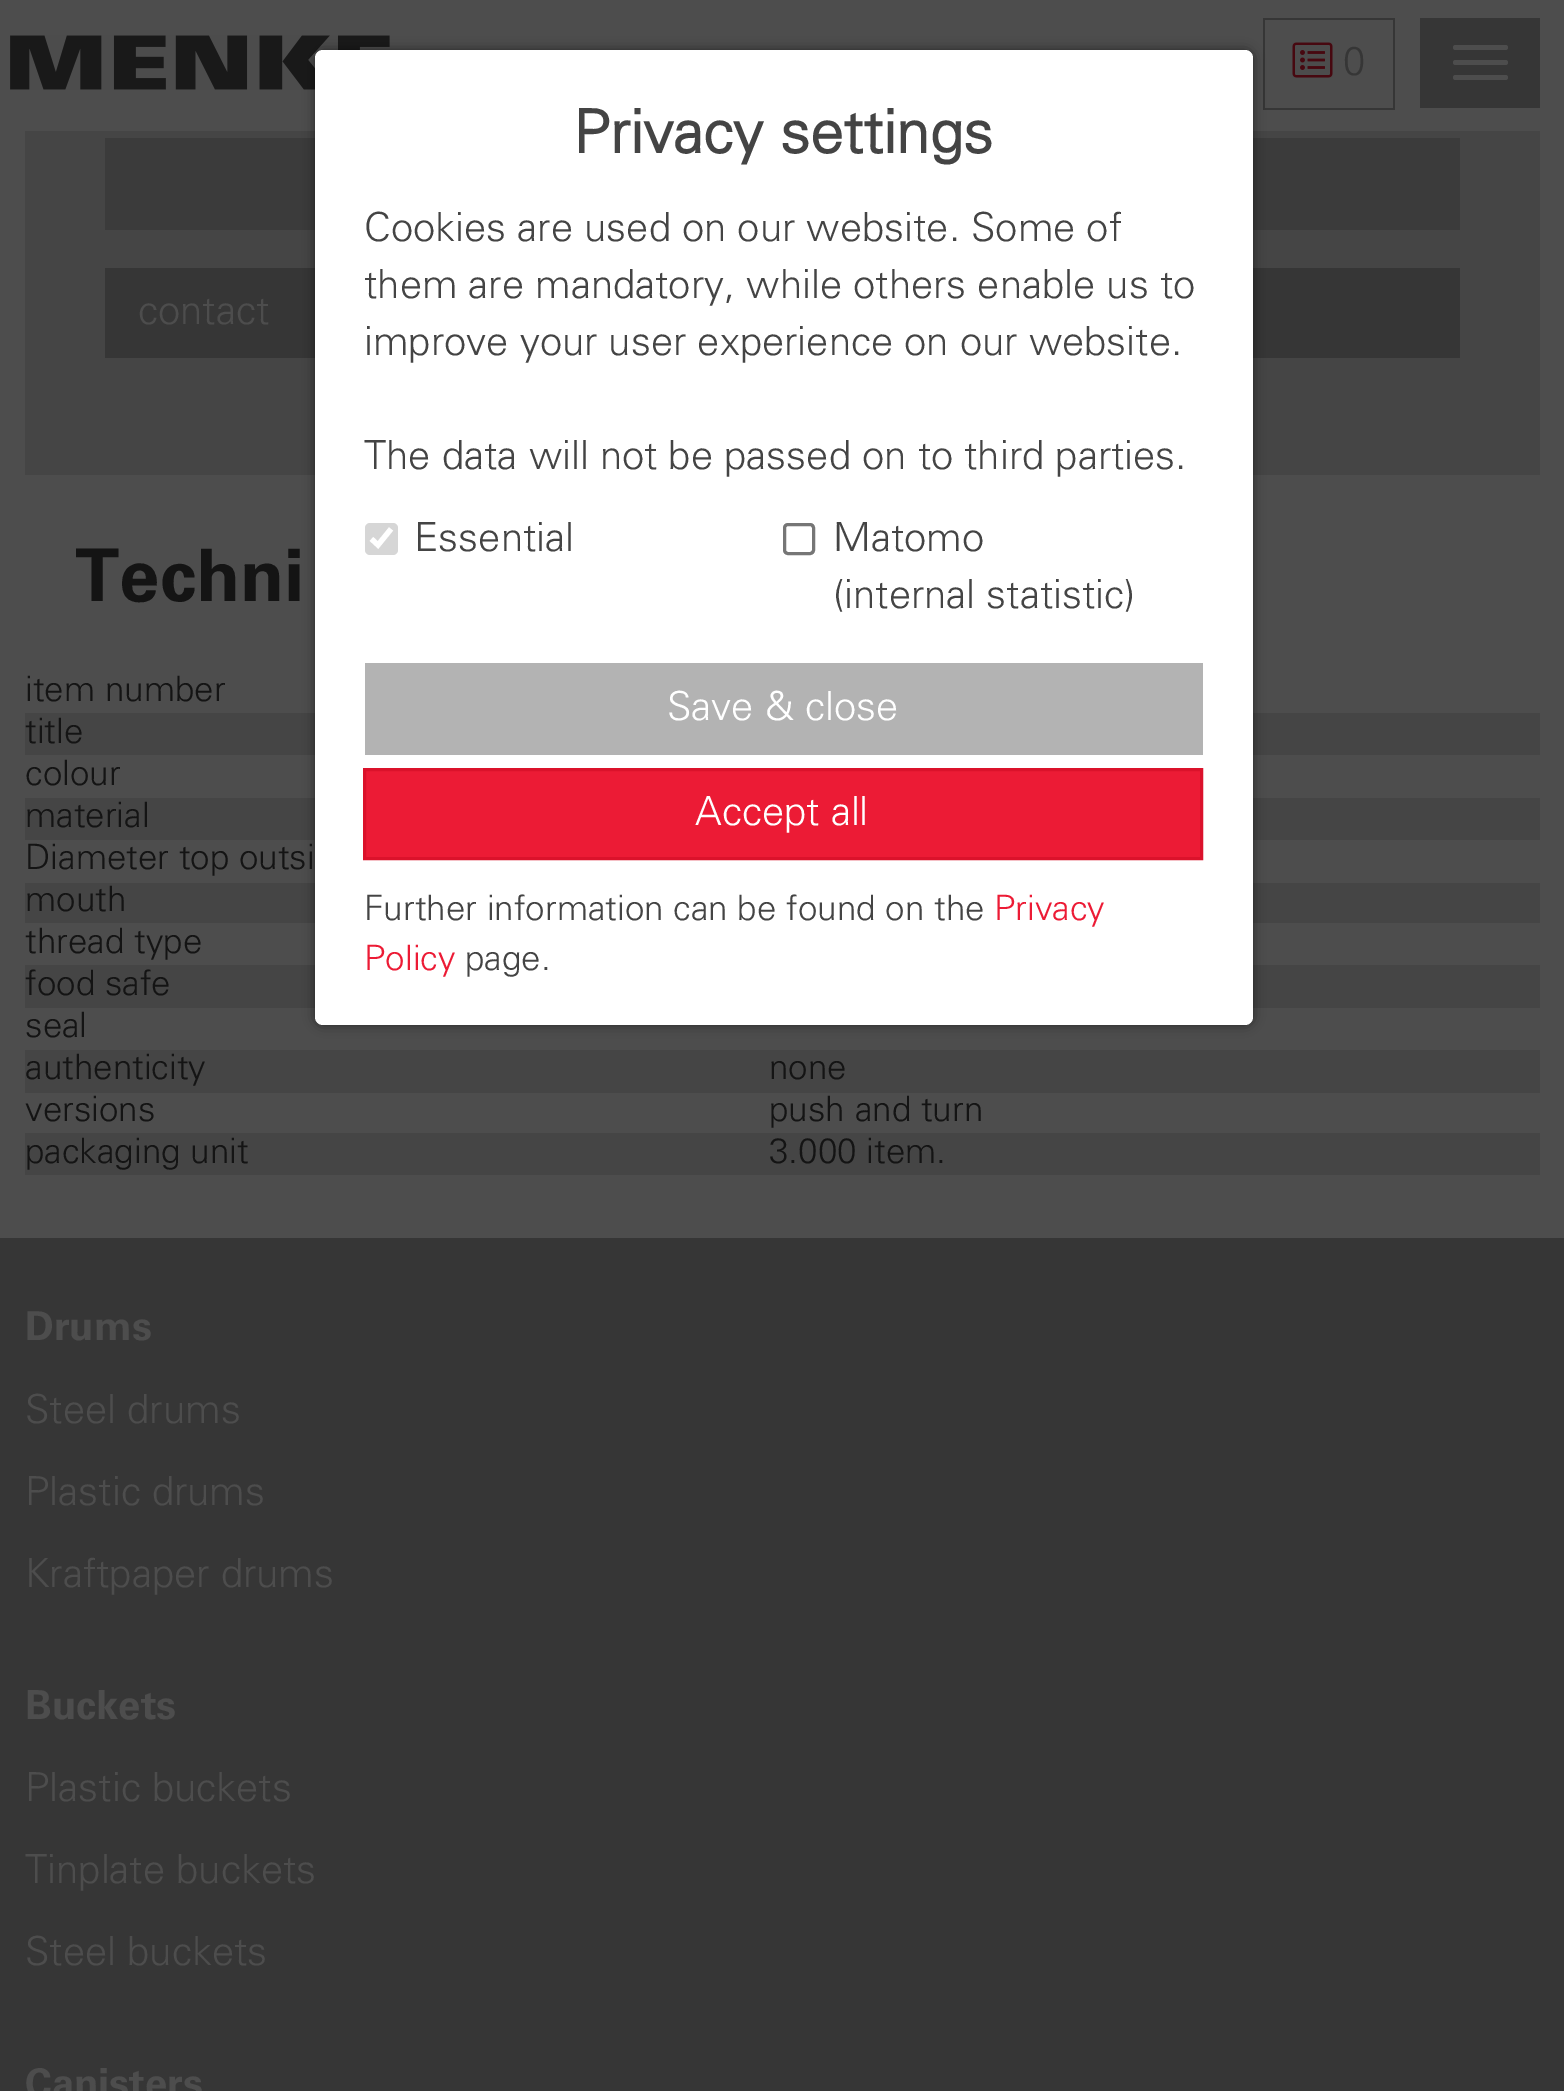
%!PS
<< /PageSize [1564 2091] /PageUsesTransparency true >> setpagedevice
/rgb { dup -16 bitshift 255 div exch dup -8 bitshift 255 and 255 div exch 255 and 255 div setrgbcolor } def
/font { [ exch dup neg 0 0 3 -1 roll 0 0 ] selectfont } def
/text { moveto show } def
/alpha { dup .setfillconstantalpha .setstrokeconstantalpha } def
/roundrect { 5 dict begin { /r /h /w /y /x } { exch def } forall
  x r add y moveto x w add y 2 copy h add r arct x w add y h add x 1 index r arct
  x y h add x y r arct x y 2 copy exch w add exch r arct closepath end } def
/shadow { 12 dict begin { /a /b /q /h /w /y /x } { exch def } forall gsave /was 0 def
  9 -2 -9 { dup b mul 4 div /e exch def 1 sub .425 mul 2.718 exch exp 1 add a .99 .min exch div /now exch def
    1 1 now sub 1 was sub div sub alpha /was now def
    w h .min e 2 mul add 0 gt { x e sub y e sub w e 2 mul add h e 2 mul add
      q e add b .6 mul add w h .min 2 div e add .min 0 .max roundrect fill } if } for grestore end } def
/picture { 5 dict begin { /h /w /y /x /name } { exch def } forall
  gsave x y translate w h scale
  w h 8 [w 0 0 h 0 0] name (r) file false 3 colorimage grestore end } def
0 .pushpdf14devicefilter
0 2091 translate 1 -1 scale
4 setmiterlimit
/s1 { /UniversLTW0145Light-Light 40 font 16#363636 rgb } def
/s2 { /UniversLTW0145Light-Bold 60 font 16#444444 rgb } def
/s3 { /UniversLTW0145Light-Light 40 font 16#444444 rgb } def
/s4 { /UniversLTW0145Light-Light 40 font 16#FFFFFF rgb } def
/s5 { /UniversLTW0145Light-Light 35 font 16#444444 rgb } def
/s6 { /UniversLTW0145Light-Light 35 font 16#EC1B35 rgb } def
/s7 { /UniversLTW0145Light-Light 40 font 16#4D4D4D rgb } def
/s8 { /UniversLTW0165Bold-Bold 72.5 font 16#141414 rgb } def
/s9 { /UniversLTW0145Light-Light 35 font 16#141414 rgb } def
/s10 { /UniversLTW0165Bold-Bold 40 font 16#4D4D4D rgb } def
16#4D4D4D rgb
0 0 1564 2091 rectfill
(pic1.raw) 10 35 380 55 picture
16#363636 rgb
1263 18 132 92 rectfill
16#4D4D4D rgb
1265 20 128 88 rectfill
(pic2.raw) 1292 42 41 36 picture
s1
(0) 1343 75 text
1420 18 120 90 rectfill
16#4D4D4D rgb
1453 45 55 5 2.5 roundrect fill
1453 60 55 5 2.5 roundrect fill
1453 75 55 5 2.5 roundrect fill
16#454545 rgb
25 131 1515 344 rectfill
16#3B3B3B rgb
105 138 1355 92 rectfill
16#363636 rgb
105 268 210 90 rectfill
1253 268 207 90 rectfill
16#454545 rgb
25 713 1515 42 rectfill
25 798 1515 42 rectfill
25 883 1515 40 rectfill
25 965 1515 43 rectfill
16#000000 rgb
315 50 938 975 8 6 0.5 shadow
16#FFFFFF rgb
315 50 938 975 8 roundrect fill
s2
(Privacy settings) 573 153 text
s3
(Cookies are used on our website. Some of) 364 241 text
(them are mandatory, while others enable us to) 364 298 text
(improve your user experience on our website.) 364 355 text
(The data will not be passed on to third parties.) 364 469 text
16#D6D6D6 rgb
365 523 33 32 5 roundrect fill
16#FFFFFF rgb
5.2 setlinewidth
371.5 539 moveto 378 545 lineto 391 529 lineto stroke
s3
(Essential) 414 551 text
16#767676 rgb
3 setlinewidth
784.5 524.5 29 29 3.5 roundrect stroke
s3
(Matomo) 833 551 text
(\(internal statistic\)) 833 608 text
16#B3B3B3 rgb
365 663 838 92 rectfill
s4
(Save & close) 667 720 text
16#EC1B35 rgb
364.5 769.5 moveto 1201.5 769.5 lineto 1201.5 858.5 lineto 364.5 858.5 lineto closepath gsave fill grestore
16#DB122B rgb
stroke
s4
(Accept all) 695 825 text
s5
(Further information can be found on the) 364 920 text
s6
(Privacy) 994 920 text
(Policy) 364 970 text
s5
(page.) 465 970 text
s7
(contact) 138 324 text
s8
(Techni) 75 601 text
s9
(item number) 25 701 text
(title) 25 743 text
(colour) 25 785 text
(material) 25 827 text
(Diameter top outsi) 25 869 text
(mouth) 25 911 text
(thread type) 25 953 text
(food safe) 25 995 text
(seal) 25 1037 text
16#454545 rgb
25 1050 1515 43 rectfill
s9
(authenticity) 25 1079 text
(none) 769 1079 text
(versions) 25 1121 text
(push and turn) 769 1121 text
16#454545 rgb
25 1133 1515 42 rectfill
s9
(packaging unit) 25 1163 text
(3.000 item.) 769 1163 text
16#363636 rgb
0 1238 1564 853 rectfill
s10
(Drums) 25 1340 text
s7
(Steel drums) 25 1423 text
(Plastic drums) 25 1505 text
(Kraftpaper drums) 25 1587 text
s10
(Buckets) 25 1719 text
s7
(Plastic buckets) 25 1801 text
(Tinplate buckets) 25 1883 text
(Steel buckets) 25 1965 text
s10
(Canisters) 25 2097 text
.poppdf14devicefilter showpage
